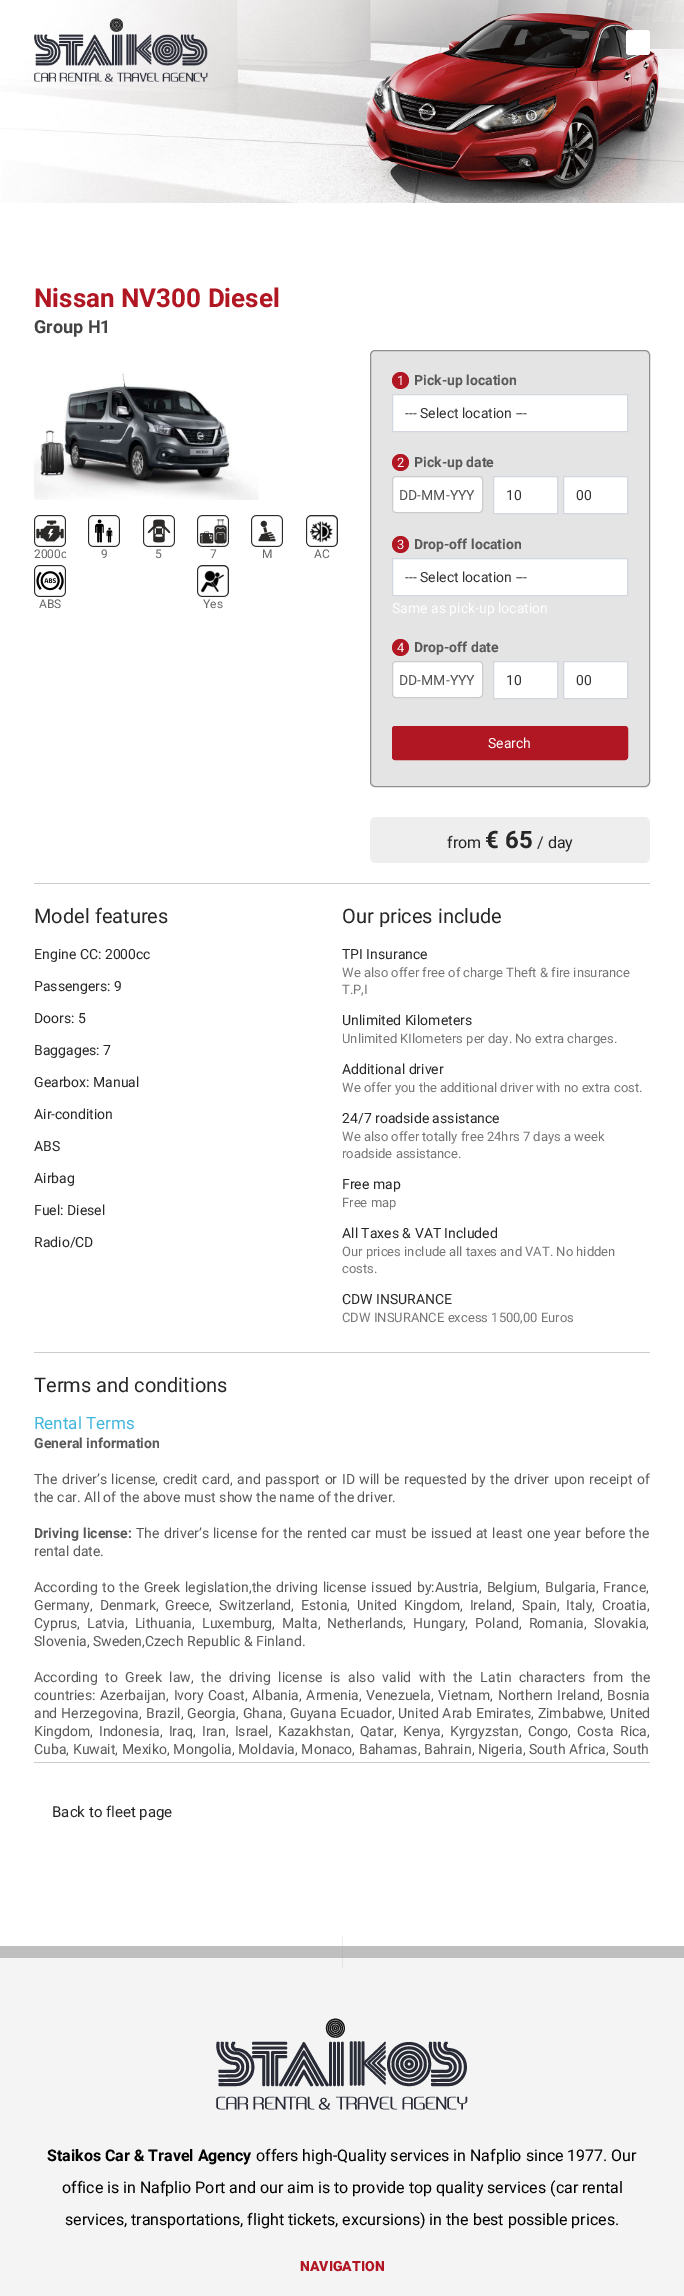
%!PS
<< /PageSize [684 2296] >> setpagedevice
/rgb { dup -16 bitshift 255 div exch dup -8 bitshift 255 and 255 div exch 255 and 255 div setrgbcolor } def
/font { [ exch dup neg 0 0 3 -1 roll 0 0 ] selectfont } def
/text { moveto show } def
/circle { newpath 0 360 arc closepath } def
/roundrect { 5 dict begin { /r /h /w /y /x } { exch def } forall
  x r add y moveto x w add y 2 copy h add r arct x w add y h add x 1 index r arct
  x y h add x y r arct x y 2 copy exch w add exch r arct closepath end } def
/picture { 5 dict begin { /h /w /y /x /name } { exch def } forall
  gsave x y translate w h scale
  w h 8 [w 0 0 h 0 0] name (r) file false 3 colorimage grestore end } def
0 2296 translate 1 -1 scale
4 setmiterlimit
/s1 { /Roboto-Bold 26 font 16#B11623 rgb } def
/s2 { /Roboto-Bold 18 font 16#444444 rgb } def
/s3 { /Roboto-Regular 12 font 16#666666 rgb } def
/s4 { /Roboto-Regular 13 font 16#FFFFFF rgb } def
/s5 { /Roboto-Bold 14 font 16#595959 rgb } def
/s6 { /Roboto-Regular 14 font 16#333333 rgb } def
/s7 { /Roboto-Regular 14 font 16#525252 rgb } def
/s8 { /Roboto-Regular 14 font 16#FFFFFF rgb } def
/s9 { /Roboto-Regular 16 font 16#272727 rgb } def
/s10 { /Roboto-Bold 24 font 16#272727 rgb } def
/s11 { /Roboto-Regular 20 font 16#272727 rgb } def
/s12 { /Roboto-Regular 14 font 16#272727 rgb } def
/s13 { /Roboto-Regular 13 font 16#777777 rgb } def
/s14 { /Roboto-Regular 17 font 16#40B6DC rgb } def
/s15 { /Roboto-Regular 14 font 16#595959 rgb } def
/s16 { /Roboto-Regular 15 font 16#272727 rgb } def
/s17 { /Roboto-Bold 16 font 16#000000 rgb } def
/s18 { /Roboto-Regular 16 font 16#000000 rgb } def
/s19 { /Roboto-Black 14 font 16#B11623 rgb } def
16#FFFFFF rgb
0 0 684 2296 rectfill
16#EDEDED rgb
342 1936 1 10 rectfill
(pic1.raw) 0 0 684 203 picture
(pic2.raw) 34 18 174 64 picture
16#FFFFFF rgb
626 30 24 25 3 roundrect fill
16#CCCCCC rgb
34 883 616 1 rectfill
s1
(Nissan NV300 Diesel) 34 307 text
s2
(Group H1) 34 333 text
(pic3.raw) 34 350 225 150 picture
(pic4.raw) 34 515 32 32 picture
gsave
34 547 32 14 rectclip
s3
(2000c) 34 558 text
grestore
(pic5.raw) 88 515 32 32 picture
s3
(9) 101 558 text
(pic6.raw) 143 515 32 32 picture
(5) 155 558 text
(pic7.raw) 197 515 32 32 picture
(7) 210 558 text
(pic8.raw) 251 515 32 32 picture
(M) 262 558 text
(pic9.raw) 306 515 32 32 picture
(AC) 314 558 text
(pic10.raw) 34 565 32 32 picture
(ABS) 39 608 text
(pic11.raw) 197 565 32 32 picture
(Yes) 203 608 text
16#E4E4E4 rgb
370.5 350.5 279 436 4.5 roundrect gsave fill grestore
16#909090 rgb
stroke
16#B11623 rgb
400.5 380.5 8.5 circle fill
s4
(1) 397 385 text
s5
(Pick-up location) 414 385 text
16#FFFFFF rgb
392.5 394.5 moveto 627.5 394.5 lineto 627.5 431.5 lineto 392.5 431.5 lineto closepath gsave fill grestore
16#D2D6DE rgb
stroke
s6
(--- Select location ---) 405 418 text
16#B11623 rgb
400.5 462.5 8.5 circle fill
s4
(2) 397 467 text
s5
(Pick-up date) 414 467 text
16#FFFFFF rgb
392.5 476.5 90 36 3.5 roundrect gsave fill grestore
16#CCCCCC rgb
stroke
s7
(DD-MM-YYY) 399 500 text
16#FFFFFF rgb
493.5 476.5 moveto 557.5 476.5 lineto 557.5 513.5 lineto 493.5 513.5 lineto closepath gsave fill grestore
16#D2D6DE rgb
stroke
s6
(10) 506 500 text
16#FFFFFF rgb
563.5 476.5 moveto 627.5 476.5 lineto 627.5 513.5 lineto 563.5 513.5 lineto closepath gsave fill grestore
16#D2D6DE rgb
stroke
s6
(00) 576 500 text
16#B11623 rgb
400.5 544.5 8.5 circle fill
s4
(3) 397 549 text
s5
(Drop-off location) 414 549 text
16#FFFFFF rgb
392.5 558.5 moveto 627.5 558.5 lineto 627.5 595.5 lineto 392.5 595.5 lineto closepath gsave fill grestore
16#D2D6DE rgb
stroke
s6
(--- Select location ---) 405 582 text
s8
(Same as pick-up location) 392 613 text
16#B11623 rgb
400.5 647.5 8.5 circle fill
s4
(4) 397 652 text
s5
(Drop-off date) 414 652 text
16#FFFFFF rgb
392.5 661.5 90 36 3.5 roundrect gsave fill grestore
16#CCCCCC rgb
stroke
s7
(DD-MM-YYY) 399 685 text
16#FFFFFF rgb
493.5 661.5 moveto 557.5 661.5 lineto 557.5 698.5 lineto 493.5 698.5 lineto closepath gsave fill grestore
16#D2D6DE rgb
stroke
s6
(10) 506 685 text
16#FFFFFF rgb
563.5 661.5 moveto 627.5 661.5 lineto 627.5 698.5 lineto 563.5 698.5 lineto closepath gsave fill grestore
16#D2D6DE rgb
stroke
s6
(00) 576 685 text
16#B11623 rgb
392.5 726.5 235 33 2.5 roundrect gsave fill grestore
stroke
s8
(Search) 488 748 text
16#EEEEEE rgb
370 817 280 46 6 roundrect fill
s9
(from) 447 848 text
s10
(€ 65) 485 848 text
s9
(/ day) 537 848 text
16#CCCCCC rgb
34 1352 616 1 rectfill
s11
(Model features) 34 923 text
s12
(Engine CC: 2000cc) 34 959 text
(Passengers: 9) 34 991 text
(Doors: 5) 34 1023 text
(Baggages: 7) 34 1055 text
(Gearbox: Manual) 34 1087 text
(Air-condition) 34 1119 text
(ABS) 34 1151 text
(Airbag) 34 1183 text
(Fuel: Diesel) 34 1215 text
(Radio/CD) 34 1247 text
s11
(Our prices include) 342 923 text
s12
(TPI Insurance) 342 959 text
s13
(We also offer free of charge Theft & fire insurance) 342 977 text
(T.P,I) 342 994 text
s12
(Unlimited Kilometers) 342 1025 text
s13
(Unlimited KIlometers per day. No extra charges.) 342 1043 text
s12
(Additional driver) 342 1074 text
s13
(We offer you the additional driver with no extra cost.) 342 1092 text
s12
(24/7 roadside assistance) 342 1123 text
s13
(We also offer totally free 24hrs 7 days a week) 342 1141 text
(roadside assistance.) 342 1158 text
s12
(Free map) 342 1189 text
s13
(Free map) 342 1207 text
s12
(All Taxes & VAT Included) 342 1238 text
s13
(Our prices include all taxes and VAT. No hidden) 342 1256 text
(costs.) 342 1273 text
s12
(CDW INSURANCE) 342 1304 text
s13
(CDW INSURANCE excess 1500,00 Euros) 342 1322 text
s11
(Terms and conditions) 34 1392 text
16#CCCCCC rgb
34 1762 616 1 rectfill
s14
(Rental Terms) 34 1429 text
s5
(General information) 34 1448 text
/Roboto-Regular 14 font
34 1484 moveto 1 0 32 (The driver’s license, credit card, and passport or ID will be requested by the driver upon receipt of) widthshow
(the car. All of the above must show the name of the driver.) 34 1502 text
/Roboto-Bold 14 font
34 1538 moveto 0.8 0 32 (Driving license:) widthshow
/Roboto-Regular 14 font
136 1538 moveto 0.8 0 32 (The driver’s license for the rented car must be issued at least one year before the) widthshow
(rental date.) 34 1556 text
34 1592 moveto 1.25 0 32 (According to the Greek legislation,the driving license issued by:Austria, Belgium, Bulgaria, France,) widthshow
34 1610 moveto 3.4 0 32 (Germany, Denmark, Greece, Switzerland, Estonia, United Kingdom, Ireland, Spain, Italy, Croatia,) widthshow
34 1628 moveto 3.75 0 32 (Cyprus, Latvia, Lithuania, Luxemburg, Malta, Netherlands, Hungary, Poland, Romania, Slovakia,) widthshow
(Slovenia, Sweden,Czech Republic & Finland.) 34 1646 text
34 1682 moveto 4.25 0 32 (According to Greek law, the driving license is also valid with the Latin characters from the) widthshow
34 1700 moveto 1.25 0 32 (countries: Azerbaijan, Ivory Coast, Albania, Armenia, Venezuela, Vietnam, Northern Ireland, Bosnia) widthshow
34 1718 moveto 0.5 0 32 (and Herzegovina, Brazil, Georgia, Ghana, Guyana Ecuador, United Arab Emirates, Zimbabwe, United) widthshow
34 1736 moveto 2.75 0 32 (Kingdom, Indonesia, Iraq, Iran, Israel, Kazakhstan, Qatar, Kenya, Kyrgyzstan, Congo, Costa Rica,) widthshow
34 1754 moveto 0.25 0 32 (Cuba, Kuwait, Mexiko, Mongolia, Moldavia, Monaco, Bahamas, Bahrain, Nigeria, South Africa, South) widthshow
s16
(Back to fleet page) 52 1817 text
16#BFBFBF rgb
0 1946 684 12 rectfill
16#BABABA rgb
342 1946 1 12 rectfill
16#F4F4F4 rgb
0 1958 684 338 rectfill
16#E5E5E5 rgb
342 1958 1 10 rectfill
(pic12.raw) 216 2018 252 92 picture
s17
(Staikos Car & Travel Agency) 47 2161 text
s18
(offers high-Quality services in Nafplio since 1977. Our) 256 2161 text
(office is in Nafplio Port and our aim is to provide top quality services \(car rental) 62 2193 text
(services, transportations, flight tickets, excursions\) in the best possible prices.) 65 2225 text
s19
(NAVIGATION) 300 2271 text
showpage
